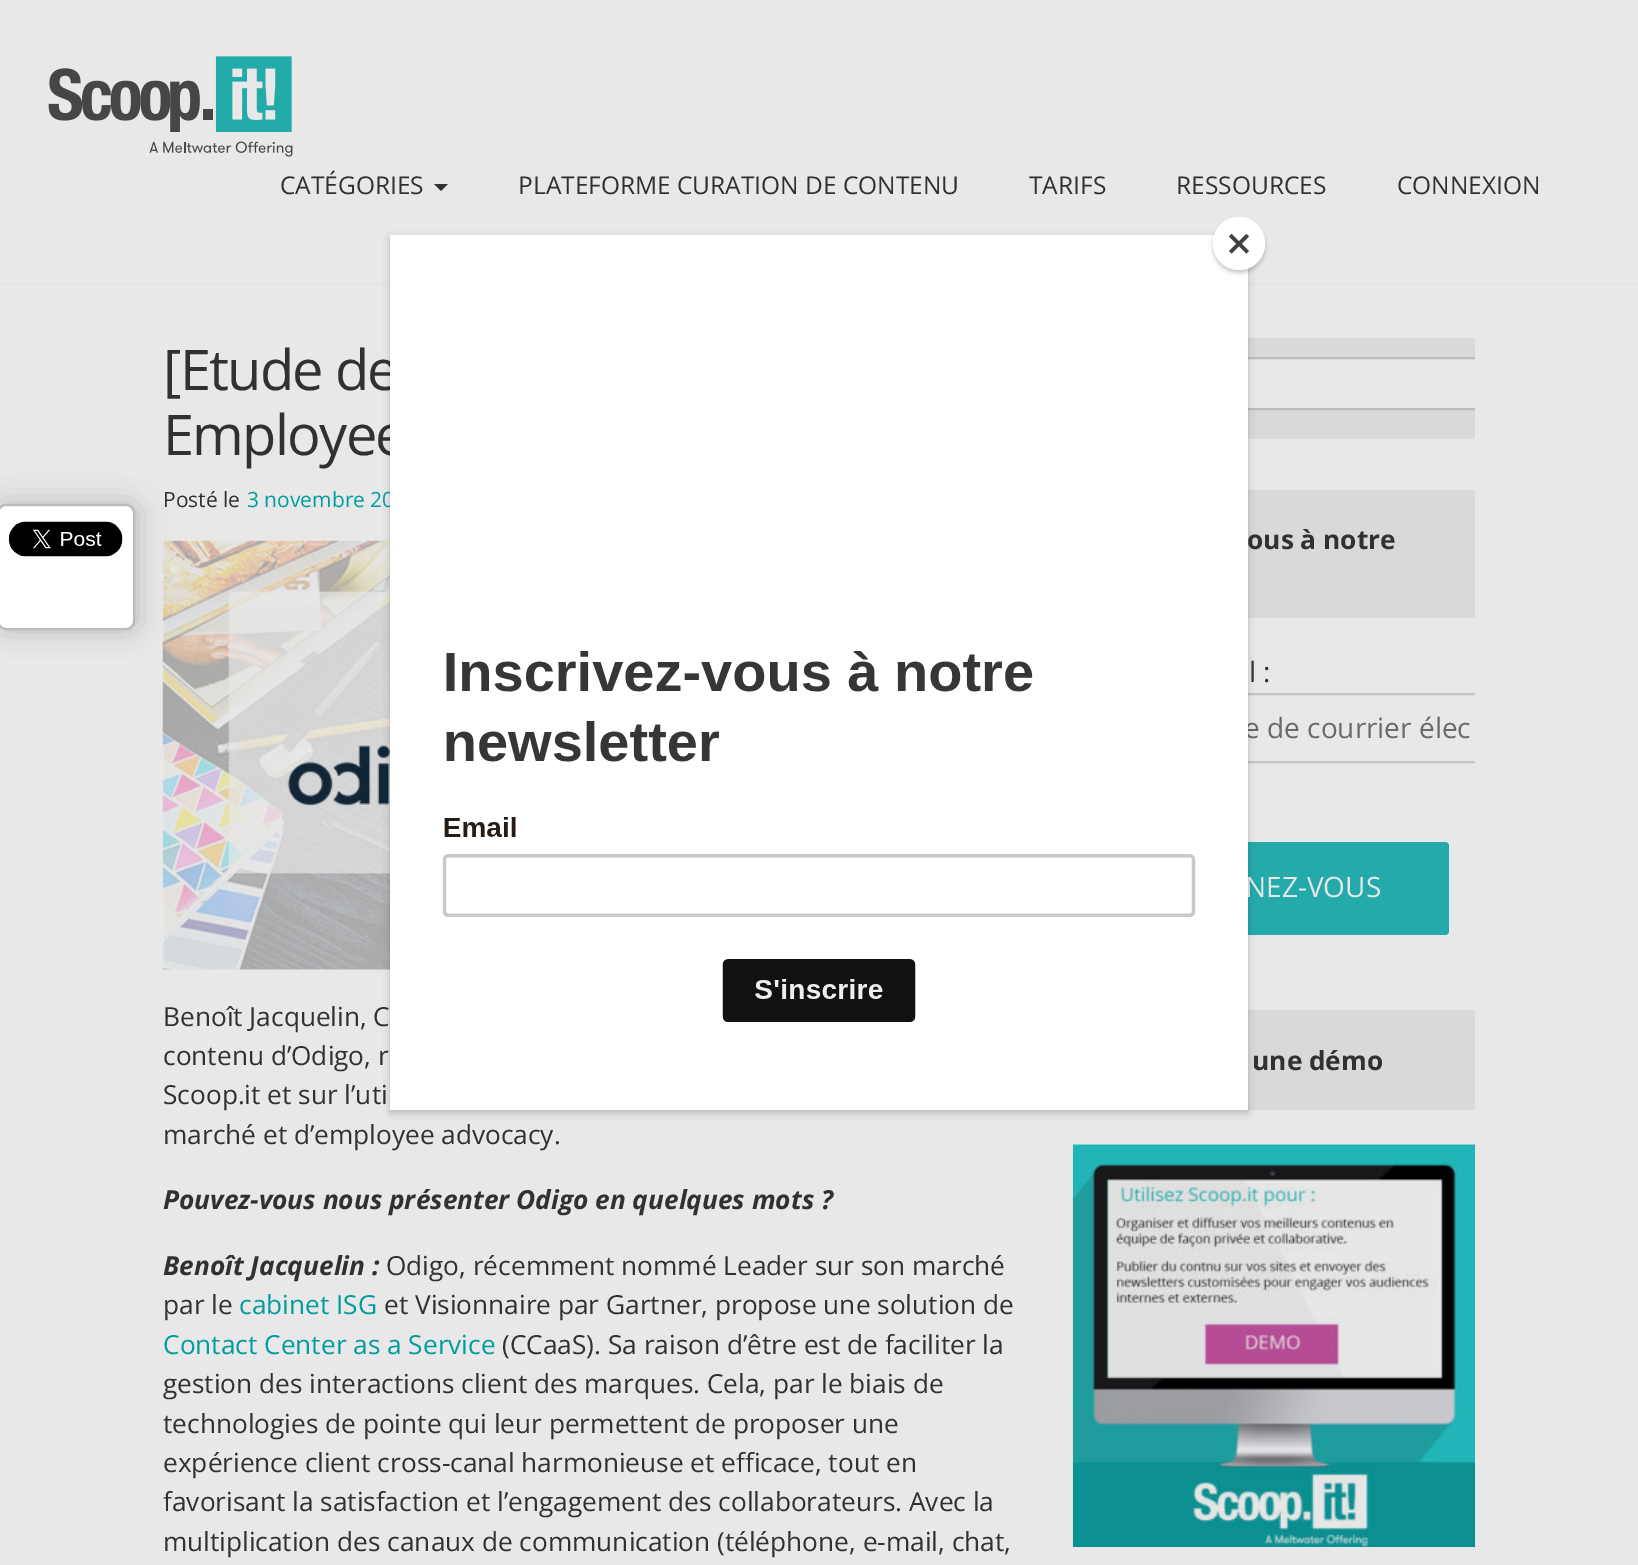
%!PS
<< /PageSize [1638 1565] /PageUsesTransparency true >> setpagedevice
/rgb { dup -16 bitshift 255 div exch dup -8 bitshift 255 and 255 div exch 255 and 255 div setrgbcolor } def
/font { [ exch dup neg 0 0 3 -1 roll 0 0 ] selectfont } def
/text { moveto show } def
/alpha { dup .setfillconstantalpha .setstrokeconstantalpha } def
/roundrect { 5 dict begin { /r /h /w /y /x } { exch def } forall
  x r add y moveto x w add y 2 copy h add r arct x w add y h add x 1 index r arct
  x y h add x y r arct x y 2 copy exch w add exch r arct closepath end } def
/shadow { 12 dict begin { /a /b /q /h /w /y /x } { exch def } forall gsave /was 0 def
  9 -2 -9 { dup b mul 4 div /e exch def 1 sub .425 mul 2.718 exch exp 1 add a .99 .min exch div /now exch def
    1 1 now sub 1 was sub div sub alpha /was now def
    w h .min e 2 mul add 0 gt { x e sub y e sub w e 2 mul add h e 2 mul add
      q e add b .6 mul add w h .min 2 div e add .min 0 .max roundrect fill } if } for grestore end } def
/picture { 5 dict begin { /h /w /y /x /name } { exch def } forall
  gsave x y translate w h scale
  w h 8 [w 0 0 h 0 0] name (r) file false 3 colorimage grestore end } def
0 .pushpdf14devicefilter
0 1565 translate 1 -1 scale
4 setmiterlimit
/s1 { /OpenSans-Regular 24.5 font 16#313131 rgb } def
/s2 { /OpenSans-Regular 21 font 16#313131 rgb } def
/s3 { /OpenSans-Regular 21 font 16#009D9E rgb } def
/s4 { /OpenSans-Regular 26.25 font 16#313131 rgb } def
/s5 { /OpenSans-BoldItalic 26.25 font 16#313131 rgb } def
/s6 { /OpenSans-Regular 26.25 font 16#009D9E rgb } def
/s7 { /OpenSans-Bold 26.25 font 16#313131 rgb } def
/s8 { /OpenSans-Regular 28 font 16#313131 rgb } def
/s9 { /OpenSans-Regular 28 font 16#6A6A6A rgb } def
/s10 { /OpenSans-Regular 28 font 16#E8E8E8 rgb } def
16#E8E8E8 rgb
0 0 1638 1565 rectfill
16#E1E1E1 rgb
0 284 1638 1 rectfill
(pic1.raw) 48 56 245 101 picture
s1
(CATÉGORIES) 280 194 text
434 184 moveto 448 184 lineto 441 191 lineto closepath fill
(PLATEFORME CURATION DE CONTENU) 518 194 text
(TARIFS) 1029 194 text
(RESSOURCES) 1176 194 text
(CONNEXION) 1397 194 text
/OpenSans-Regular 56 font
163 390 moveto -1.75 0 ([Etude de) ashow
163 455 moveto -1.75 0 (Employee) ashow
s2
(Posté le) 163 507 text
s3
(3 novembre 20) 247 507 text
(pic2.raw) 162 540 228 430 picture
s4
(Benoît Jacquelin, C) 163 1026 text
(contenu d’Odigo, r) 163 1065 text
(Scoop.it et sur l’uti) 163 1104 text
(marché et d’employee advocacy.) 163 1144 text
s5
(Pouvez-vous nous présenter Odigo en quelques mots ?) 163 1209 text
(Benoît Jacquelin :) 163 1275 text
s4
(Odigo, récemment nommé Leader sur son marché) 386 1275 text
(par le) 163 1314 text
s6
(cabinet ISG) 239 1314 text
s4
(et Visionnaire par Gartner, propose une solution de) 384 1314 text
s6
(Contact Center as a Service) 163 1354 text
s4
(\(CCaaS\). Sa raison d’être est de faciliter la) 502 1354 text
(gestion des interactions client des marques. Cela, par le biais de) 163 1393 text
(technologies de pointe qui leur permettent de proposer une) 163 1433 text
(expérience client cross-canal harmonieuse et efficace, tout en) 163 1472 text
(favorisant la satisfaction et l’engagement des collaborateurs. Avec la) 163 1511 text
(multiplication des canaux de communication \(téléphone, e-mail, chat,) 163 1551 text
16#D9D9D9 rgb
1248 338 227 101 rectfill
16#E8E8E8 rgb
1248 359 227 49 rectfill
gsave
1073 338 402 101 rectclip
16#BBBBBB rgb
2 setlinewidth
1093 358 453 51 rectstroke
grestore
16#D9D9D9 rgb
1248 490 227 128 rectfill
s7
(ous à notre) 1247 549 text
s8
(l :) 1249 682 text
gsave
1073 473 402 488 rectclip
16#C4C5C5 rgb
2 setlinewidth
1074 694 505 68 rectstroke
grestore
s9
(e de courrier élec) 1244 738 text
16#24AAAA rgb
1099 842 350 93 4 roundrect fill
s10
(NEZ-VOUS) 1245 897 text
16#D9D9D9 rgb
1248 1010 227 100 rectfill
s7
(une démo) 1252 1070 text
(pic3.raw) 1072 1144 404 403 picture
16#000000 rgb
-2 504 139 126 9 13 0.2 shadow
16#FFFFFF rgb
-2 505 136 124 8 roundrect gsave fill grestore
16#BBBBBB rgb
2 setlinewidth
stroke
(pic4.raw) 8 521 115 36 picture
16#000000 rgb
390 238 858 875 0 3.5 0.2 shadow
(pic5.raw) 390 235 858 875 picture
1213 221 52 52 26 2 0.2 shadow
16#FFFFFF rgb
1213 217 52 53 26 roundrect fill
16#414141 rgb
1246.5 234 moveto 1249 236.5 lineto 1231.5 253.5 lineto 1229 251 lineto closepath fill
1229 236.5 moveto 1231.5 234 lineto 1249 251 lineto 1246.5 253.5 lineto closepath fill
.poppdf14devicefilter showpage
